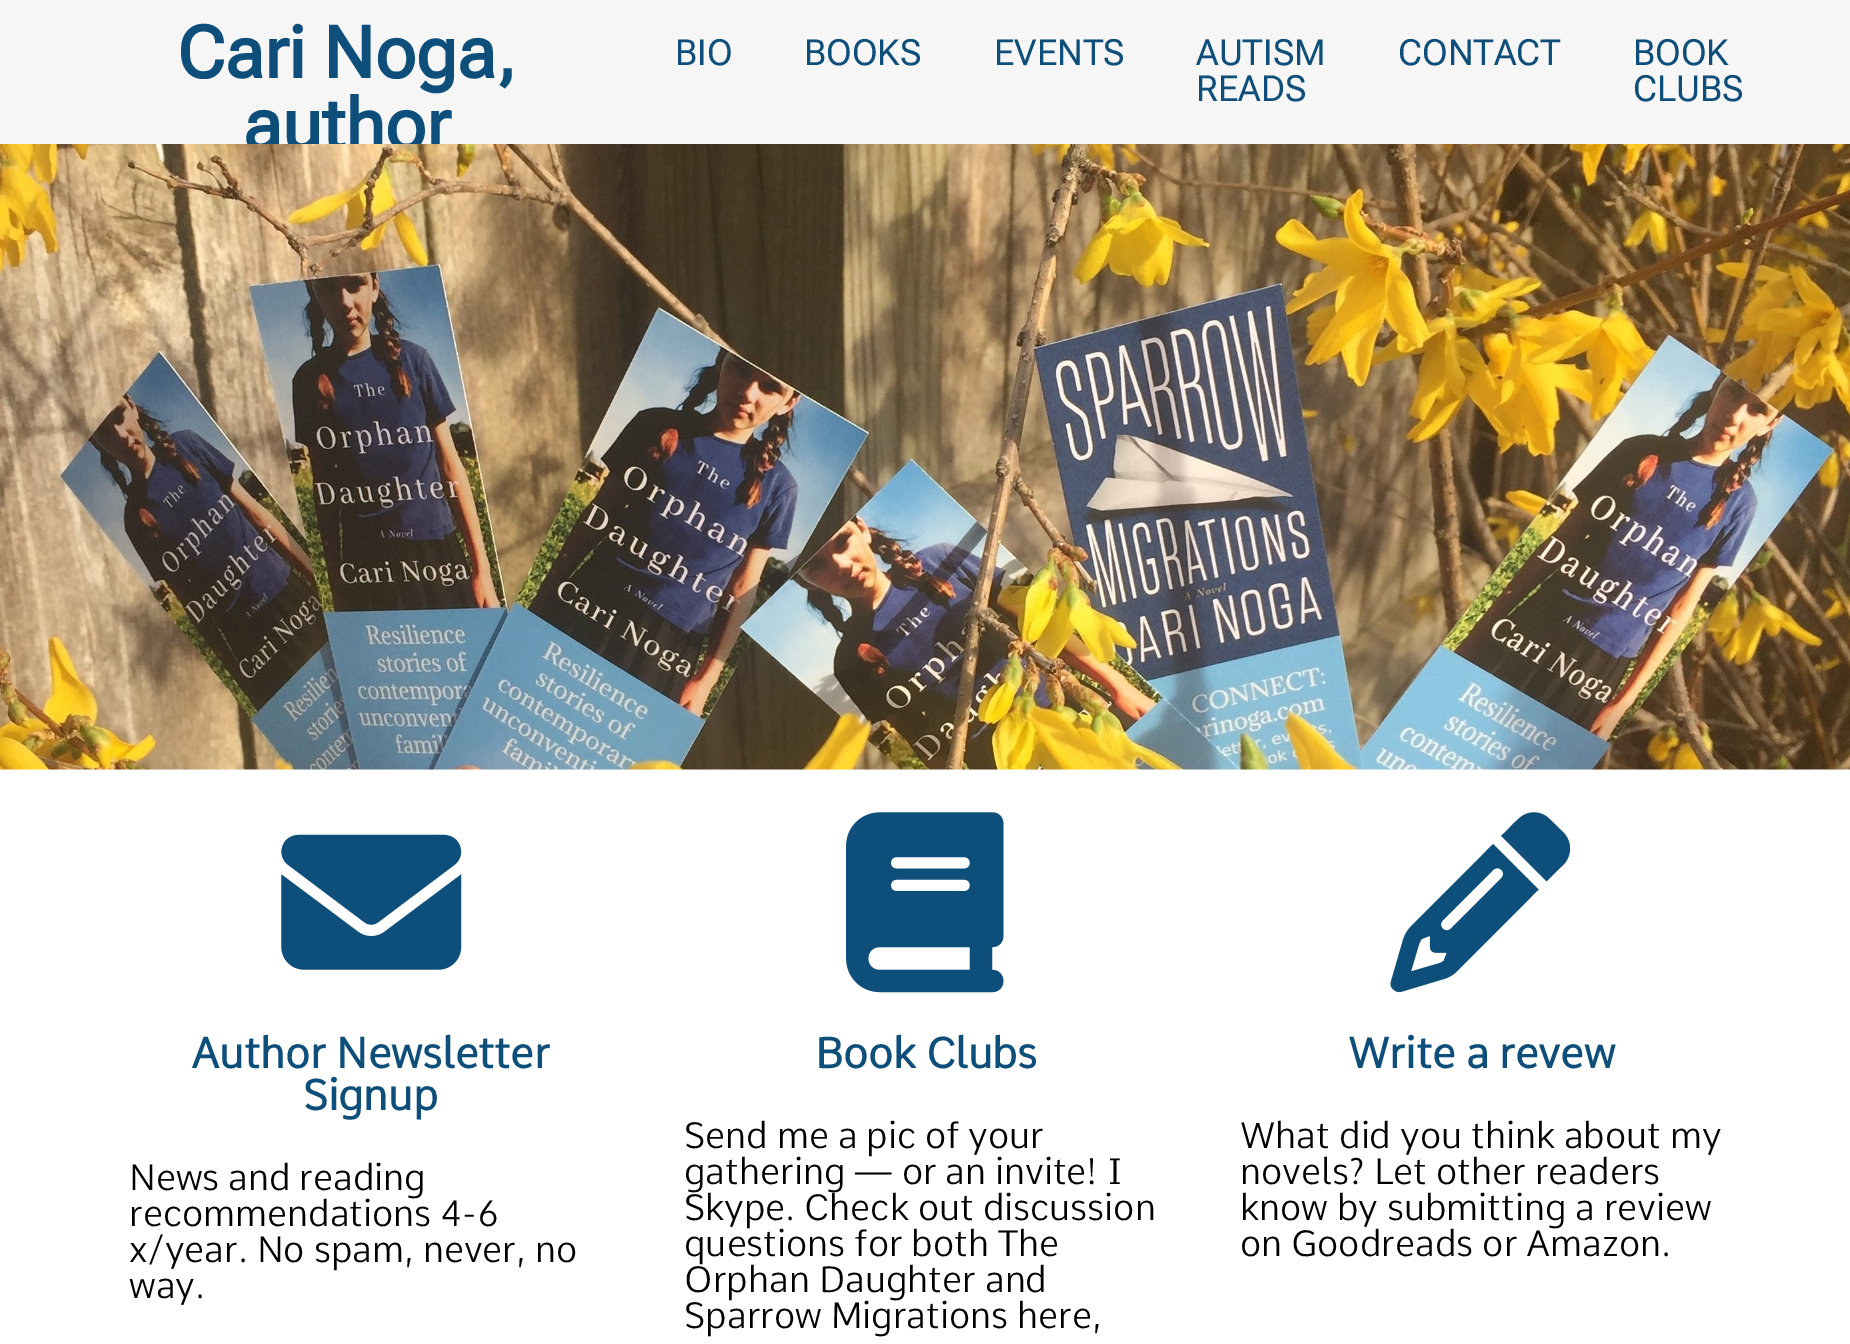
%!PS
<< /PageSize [1850 1344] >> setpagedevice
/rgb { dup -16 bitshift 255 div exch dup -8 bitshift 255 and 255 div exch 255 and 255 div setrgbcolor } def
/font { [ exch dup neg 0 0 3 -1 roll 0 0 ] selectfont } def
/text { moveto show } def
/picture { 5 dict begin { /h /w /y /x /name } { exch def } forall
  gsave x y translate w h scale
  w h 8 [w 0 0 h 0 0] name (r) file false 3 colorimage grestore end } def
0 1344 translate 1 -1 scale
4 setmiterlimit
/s1 { /RobotoFlex-Bold 72 font 16#0E4E7A rgb } def
/s2 { /RobotoFlex-Regular 36 font 16#0E4E7A rgb } def
/s3 { /Comme-Bold 42.1 font 16#0E4E7A rgb } def
/s4 { /Comme-Light 36 font 16#000000 rgb } def
16#FFFFFF rgb
0 0 1850 1344 rectfill
16#F6F6F6 rgb
0 0 1850 144 rectfill
s1
(Cari Noga,) 177 78 text
(author) 243 150 text
s2
(BIO) 675 65 text
(BOOKS) 804 65 text
(EVENTS) 994 65 text
(AUTISM) 1196 65 text
(READS) 1196 101 text
(CONTACT) 1398 65 text
(BOOK) 1633 65 text
(CLUBS) 1633 101 text
(pic1.raw) 0 144 1850 626 picture
(pic2.raw) 281 834 181 136 picture
s3
(Author Newsletter) 191 1068 text
(Signup) 303 1110 text
s4
(News and reading) 129 1190 text
(recommendations 4-6) 129 1226 text
(x/year. No spam, never, no) 129 1262 text
(way.) 129 1298 text
(pic3.raw) 846 812 158 181 picture
s3
(Book Clubs) 815 1068 text
s4
(Send me a pic of your) 684 1148 text
(gathering — or an invite! I) 684 1184 text
(Skype. Check out discussion) 684 1220 text
(questions for both The) 684 1256 text
(Orphan Daughter and) 684 1292 text
(Sparrow Migrations here,) 684 1328 text
(pic4.raw) 1390 812 181 181 picture
s3
(Write a revew) 1348 1068 text
s4
(What did you think about my) 1240 1148 text
(novels? Let other readers) 1240 1184 text
(know by submitting a review) 1240 1220 text
(on Goodreads or Amazon.) 1240 1256 text
showpage
